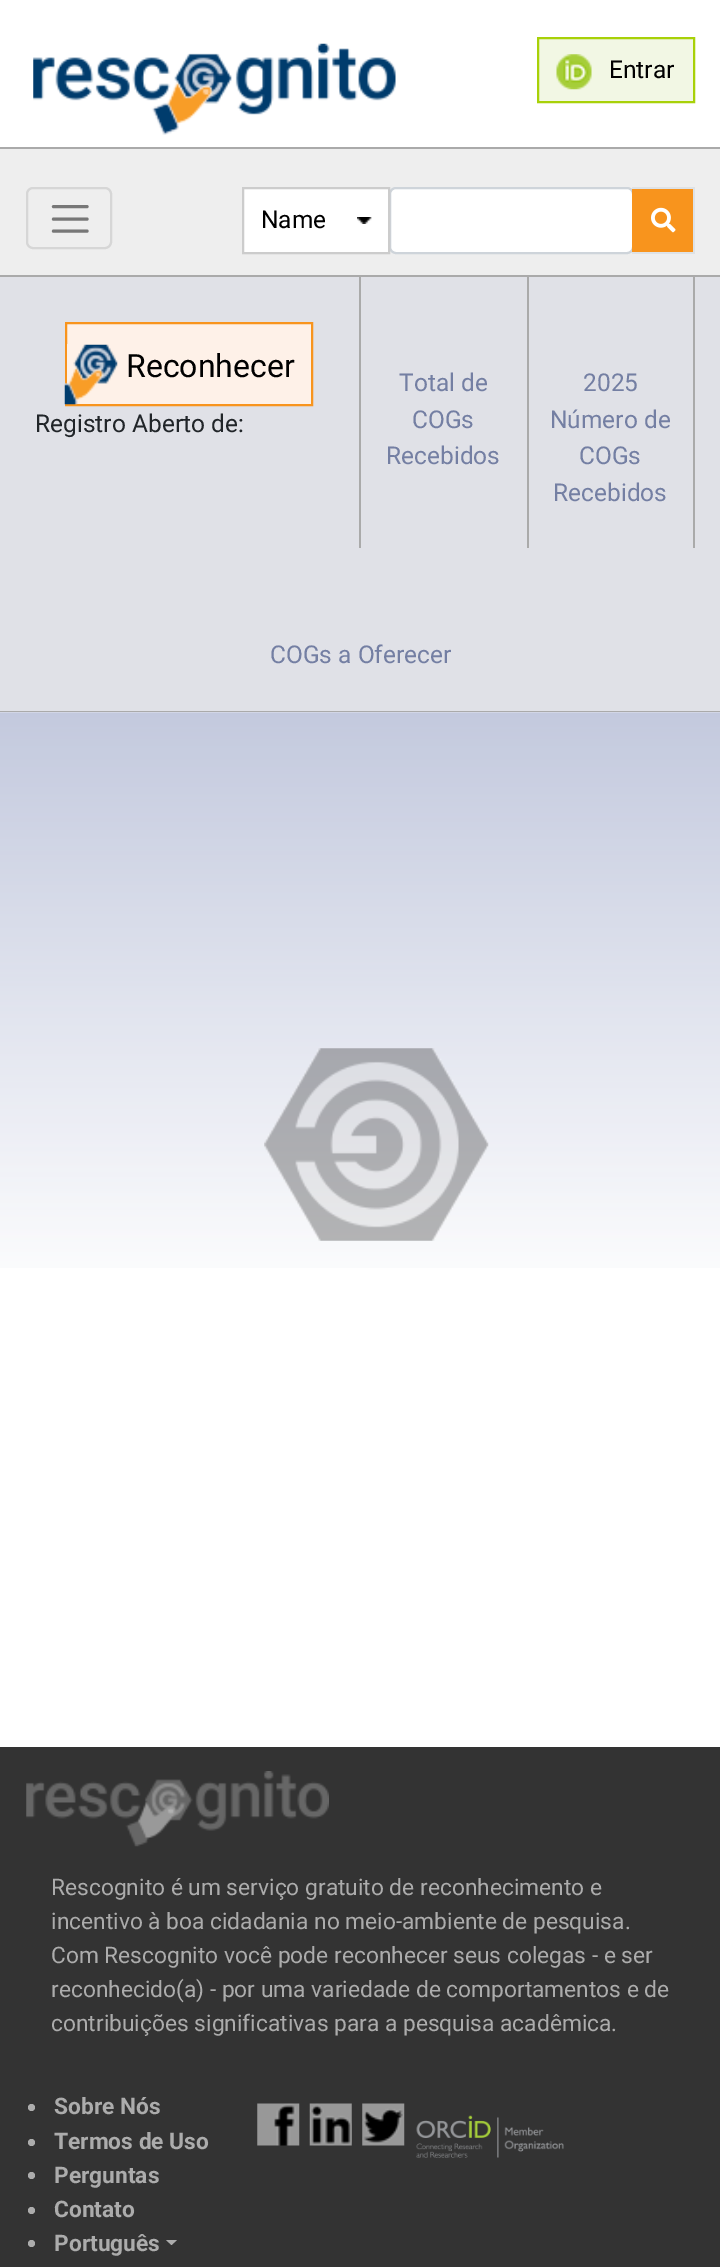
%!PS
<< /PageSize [720 2267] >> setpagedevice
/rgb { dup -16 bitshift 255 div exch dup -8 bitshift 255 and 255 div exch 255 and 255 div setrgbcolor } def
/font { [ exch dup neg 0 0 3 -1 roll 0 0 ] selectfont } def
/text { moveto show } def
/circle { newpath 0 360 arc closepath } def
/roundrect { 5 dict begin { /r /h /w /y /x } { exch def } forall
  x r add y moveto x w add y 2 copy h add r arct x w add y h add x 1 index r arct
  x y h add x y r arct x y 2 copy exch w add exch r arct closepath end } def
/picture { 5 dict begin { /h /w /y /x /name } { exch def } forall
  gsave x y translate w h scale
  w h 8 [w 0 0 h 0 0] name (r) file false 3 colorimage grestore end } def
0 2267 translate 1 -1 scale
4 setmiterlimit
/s1 { /Roboto-Regular 24.5 font 16#000000 rgb } def
/s2 { /Roboto-Regular 32 font 16#000000 rgb } def
/s3 { /Roboto-Regular 24.5 font 16#212529 rgb } def
/s4 { /Roboto-Regular 24.5 font 16#747FA3 rgb } def
/s5 { /Roboto-Regular 22.75 font 16#ACACAC rgb } def
/s6 { /Roboto-Bold 22.75 font 16#ACACAC rgb } def
16#FFFFFF rgb
0 0 720 2267 rectfill
(pic1.raw) 33 43 363 92 picture
16#F2F7E4 rgb
538 38 moveto 694 38 lineto 694 102 lineto 538 102 lineto closepath gsave fill grestore
16#A8D108 rgb
2 setlinewidth
stroke
(pic2.raw) 556 54 36 36 picture
s1
(Entrar) 609 78 text
16#EEEEEE rgb
0 149 720 126 rectfill
16#AAAAAA rgb
0 147 720 2 rectfill
0 275 720 2 rectfill
16#D6D6D6 rgb
27 188 84 60 6 roundrect stroke
16#777777 rgb
3.1 setlinewidth
1 setlinecap
53.5 206.5 moveto 87 206.5 lineto 53.5 219 moveto 87 219 lineto 53.5 231 moveto 87 231 lineto stroke
16#FFFFFF rgb
244 189 144 63 rectfill
(pic3.raw) 357 217 15 7 picture
390 189 242 63 4 roundrect fill
16#CED4DA rgb
2 setlinewidth
0 setlinecap
390 188 243 65 6 roundrect stroke
16#CCCCCC rgb
243 188 146 65 rectstroke
s1
(Name) 261 228 text
16#F8941D rgb
632 189 61 63 rectfill
16#DEE2E6 rgb
632 187 63 2 rectfill
693 187 2 67 rectfill
632 252 63 2 rectfill
(pic4.raw) 651 207 25 26 picture
16#E0E1E7 rgb
0 277 720 434 rectfill
16#AAAAAA rgb
0 711 720 1 rectfill
359 277 2 271 rectfill
16#FEF1E8 rgb
66 323 moveto 312 323 lineto 312 405 lineto 66 405 lineto closepath gsave fill grestore
16#F8941D rgb
stroke
(pic5.raw) 64 344 54 61 picture
s2
(Reconhecer) 126 377 text
s3
(Registro Aberto de:) 35 432 text
16#AAAAAA rgb
527 277 2 271 rectfill
s4
(Total de) 399 391 text
(COGs) 412 428 text
(Recebidos) 386 464 text
16#AAAAAA rgb
693 277 2 271 rectfill
s4
(2025) 583 391 text
(Número de) 550 428 text
(COGs) 579 464 text
(Recebidos) 553 501 text
(COGs a Oferecer) 270 663 text
(pic6.raw) 0 712 720 556 picture
(pic7.raw) 264 1048 225 193 picture
16#333333 rgb
0 1747 720 520 rectfill
(pic8.raw) 26 1771 303 76 picture
s5
(Rescognito é um serviço gratuito de reconhecimento e) 51 1895 text
(incentivo à boa cidadania no meio-ambiente de pesquisa.) 51 1929 text
(Com Rescognito você pode reconhecer seus colegas - e ser) 51 1963 text
(reconhecido\(a\) - por uma variedade de comportamentos e de) 51 1997 text
(contribuições significativas para a pesquisa acadêmica.) 51 2031 text
31.5 2107.5 3.5 circle fill
s6
(Sobre Nós) 54 2114 text
31.5 2142.5 3.5 circle fill
(Termos de Uso) 54 2149 text
31.5 2175.5 3.5 circle fill
(Perguntas) 54 2183 text
31.5 2210.5 3.5 circle fill
(Contato) 54 2217 text
31.5 2243.5 3.5 circle fill
(Português) 54 2251 text
166 2240 moveto 177 2240 lineto 171.5 2245 lineto closepath fill
(pic9.raw) 257 2103 43 43 picture
(pic10.raw) 309 2103 43 43 picture
(pic11.raw) 362 2103 43 43 picture
(pic12.raw) 416 2115 148 43 picture
showpage
